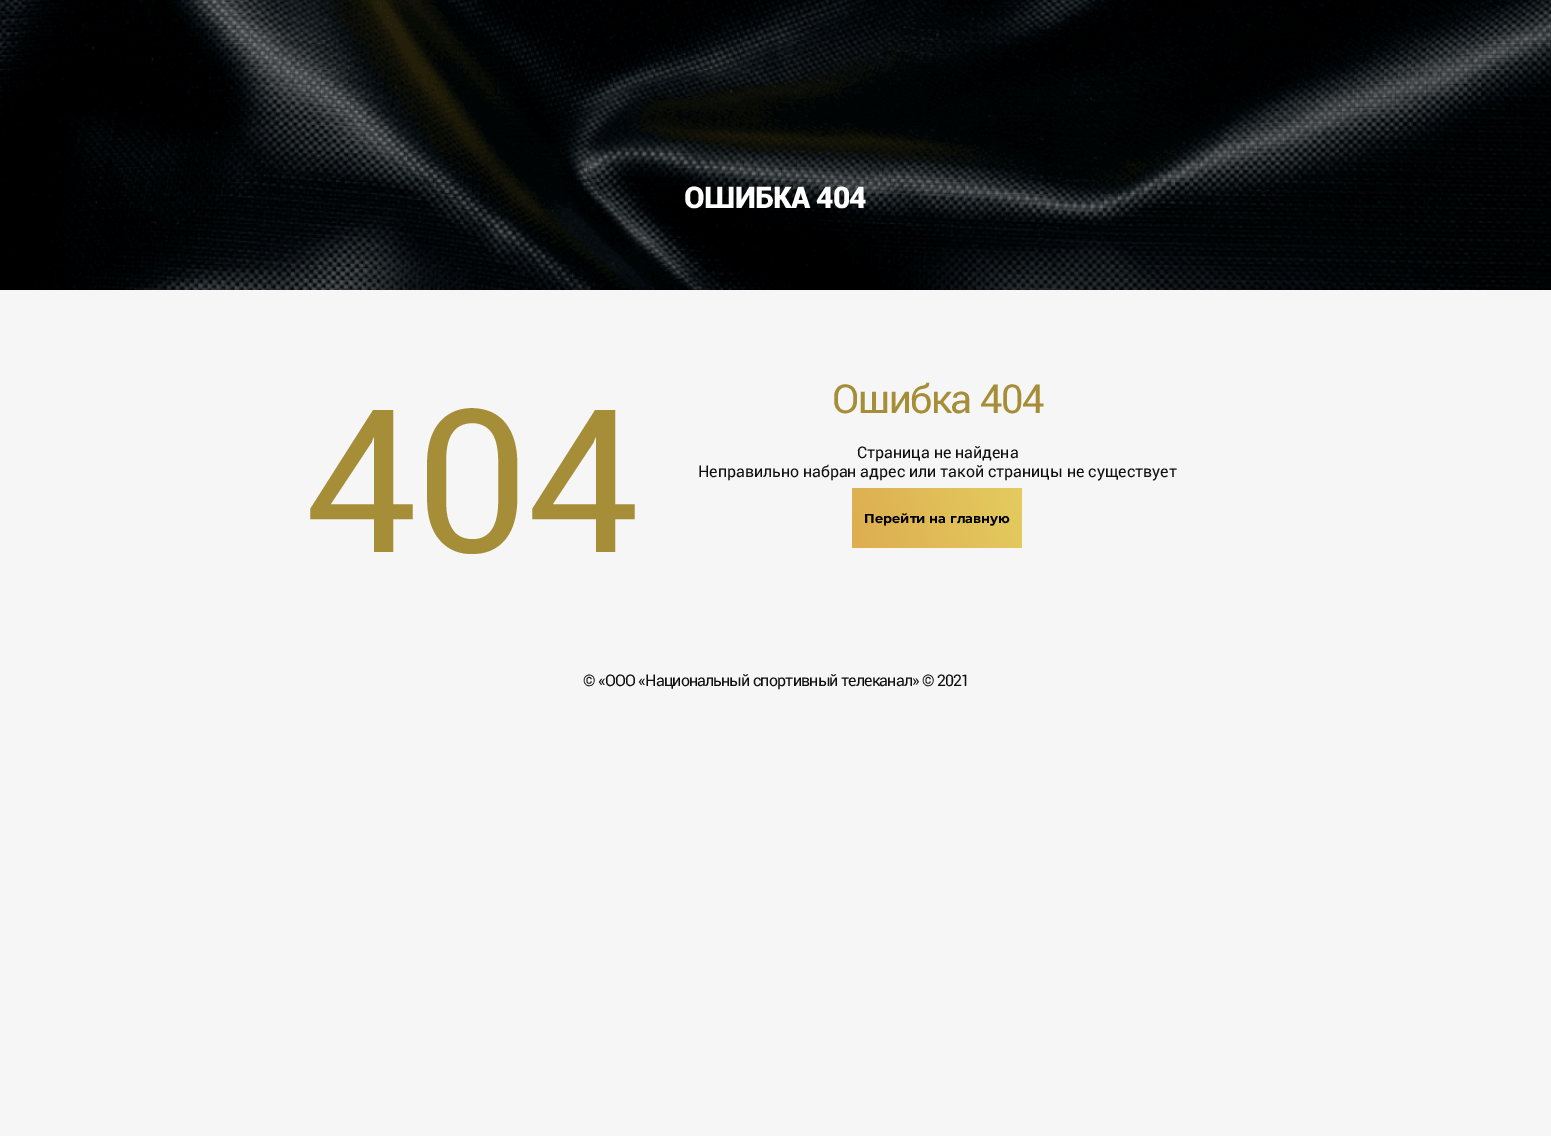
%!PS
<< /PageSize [1551 1136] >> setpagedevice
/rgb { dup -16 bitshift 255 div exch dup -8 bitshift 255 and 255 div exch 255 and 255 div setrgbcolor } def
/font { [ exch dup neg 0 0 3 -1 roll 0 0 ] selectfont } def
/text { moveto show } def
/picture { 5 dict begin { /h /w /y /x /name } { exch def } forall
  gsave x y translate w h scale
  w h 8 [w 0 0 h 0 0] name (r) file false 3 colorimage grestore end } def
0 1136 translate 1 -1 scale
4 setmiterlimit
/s1 { /Roboto-Regular 16 font 16#0F0F0F rgb } def
/s2 { /Montserrat-Bold 13 font 16#000000 rgb } def
16#F6F6F6 rgb
0 0 1551 1136 rectfill
(pic1.raw) 0 0 1551 290 picture
/Roboto-Black 30 font
16#FFFFFF rgb
684 208 moveto -0.75 0 (ОШИБКА 404) ashow
/Roboto-Regular 200 font
16#A68D38 rgb
305 552 moveto -1.4 0 (404) ashow
/Roboto-Regular 40 font
832 413 moveto -1.4 0 (Ошибка 404) ashow
s1
(Страница не найдена) 857 458 text
(Неправильно набран адрес или такой страницы не существует) 698 477 text
gsave 852 488 moveto 1022 488 lineto 1022 548 lineto 852 548 lineto closepath clip newpath
<< /ShadingType 2 /ColorSpace /DeviceRGB /Coords [853 550 1021 486] /Extend [true true] /Function << /FunctionType 2 /Domain [0 1] /C0 [0.867 0.678 0.314] /C1 [0.894 0.8 0.373] /N 1 >> >> shfill grestore
s2
(Перейти на главную) 864 523 text
/Roboto-Regular 16 font
16#0F0F0F rgb
583 686 moveto -0.8 0 (© «ООО «Национальный спортивный телеканал» © 2021) ashow
showpage
